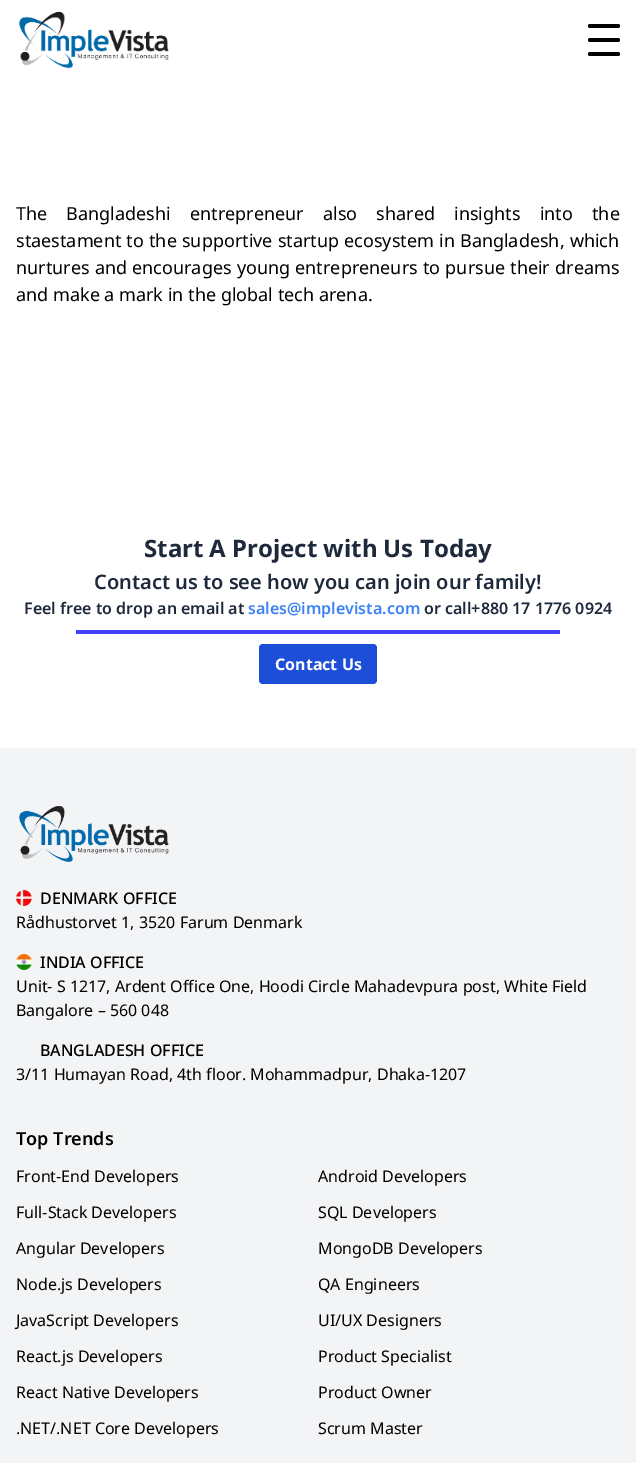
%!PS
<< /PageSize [636 1463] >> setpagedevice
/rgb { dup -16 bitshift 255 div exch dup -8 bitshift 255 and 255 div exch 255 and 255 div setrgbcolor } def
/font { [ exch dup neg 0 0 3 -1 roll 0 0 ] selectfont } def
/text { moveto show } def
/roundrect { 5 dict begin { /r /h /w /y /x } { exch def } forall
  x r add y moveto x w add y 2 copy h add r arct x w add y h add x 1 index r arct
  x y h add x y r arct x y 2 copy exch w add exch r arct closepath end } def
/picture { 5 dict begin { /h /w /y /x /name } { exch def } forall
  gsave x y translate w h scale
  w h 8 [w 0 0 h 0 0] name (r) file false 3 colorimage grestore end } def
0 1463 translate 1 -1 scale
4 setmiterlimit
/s1 { /NotoSans-Regular 18 font 16#000000 rgb } def
/s2 { /NotoSans-Bold 24 font 16#1E293B rgb } def
/s3 { /NotoSans-SemiBold 20 font 16#1E293B rgb } def
/s4 { /NotoSans-SemiBold 16 font 16#1E293B rgb } def
/s5 { /NotoSans-SemiBold 16 font 16#3B82F6 rgb } def
/s6 { /NotoSans-Bold 16 font 16#FFFFFF rgb } def
/s7 { /NotoSans-Medium 16 font 16#000000 rgb } def
/s8 { /NotoSans-Regular 16 font 16#000000 rgb } def
/s9 { /NotoSans-SemiBold 18 font 16#000000 rgb } def
16#FFFFFF rgb
0 0 636 1463 rectfill
(pic1.raw) 19 11 150 58 picture
16#000000 rgb
588 24 32 4 2 roundrect fill
588 38 32 4 2 roundrect fill
588 52 32 4 2 roundrect fill
/NotoSans-Regular 18 font
16 220 moveto 14.5 0 32 (The Bangladeshi entrepreneur also shared insights into the) widthshow
16 247 moveto 0.5 0 32 (staestament to the supportive startup ecosystem in Bangladesh, which) widthshow
16 274 moveto 0.5 0 32 (nurtures and encourages young entrepreneurs to pursue their dreams) widthshow
(and make a mark in the global tech arena.) 16 301 text
s2
(Start A Project with Us Today) 144 557 text
s3
(Contact us to see how you can join our family!) 94 589 text
s4
(Feel free to drop an email at) 24 614 text
s5
(sales@implevista.com) 248 614 text
s4
(or call+880 17 1776 0924) 424 614 text
16#4242FC rgb
76 630 484 4 rectfill
16#1D4ED8 rgb
259 644 118 40 4 roundrect fill
s6
(Contact Us) 275 670 text
16#F3F4F6 rgb
0 748 636 715 rectfill
(pic2.raw) 19 806 150 56 picture
(pic3.raw) 16 890 16 16 picture
s7
(DENMARK OFFICE) 40 904 text
s8
(Rådhustorvet 1, 3520 Farum Denmark) 16 928 text
(pic4.raw) 16 954 16 16 picture
s7
(INDIA OFFICE) 40 968 text
s8
(Unit- S 1217, Ardent Office One, Hoodi Circle Mahadevpura post, White Field) 16 992 text
(Bangalore – 560 048) 16 1016 text
s7
(BANGLADESH OFFICE) 40 1056 text
s8
(3/11 Humayan Road, 4th floor. Mohammadpur, Dhaka-1207) 16 1080 text
s9
(Top Trends) 16 1145 text
s8
(Front-End Developers) 16 1182 text
(Full-Stack Developers) 16 1218 text
(Angular Developers) 16 1254 text
(Node.js Developers) 16 1290 text
(JavaScript Developers) 16 1326 text
(React.js Developers) 16 1362 text
(React Native Developers) 16 1398 text
(.NET/.NET Core Developers) 16 1434 text
(Android Developers) 318 1182 text
(SQL Developers) 318 1218 text
(MongoDB Developers) 318 1254 text
(QA Engineers) 318 1290 text
(UI/UX Designers) 318 1326 text
(Product Specialist) 318 1362 text
(Product Owner) 318 1398 text
(Scrum Master) 318 1434 text
showpage
